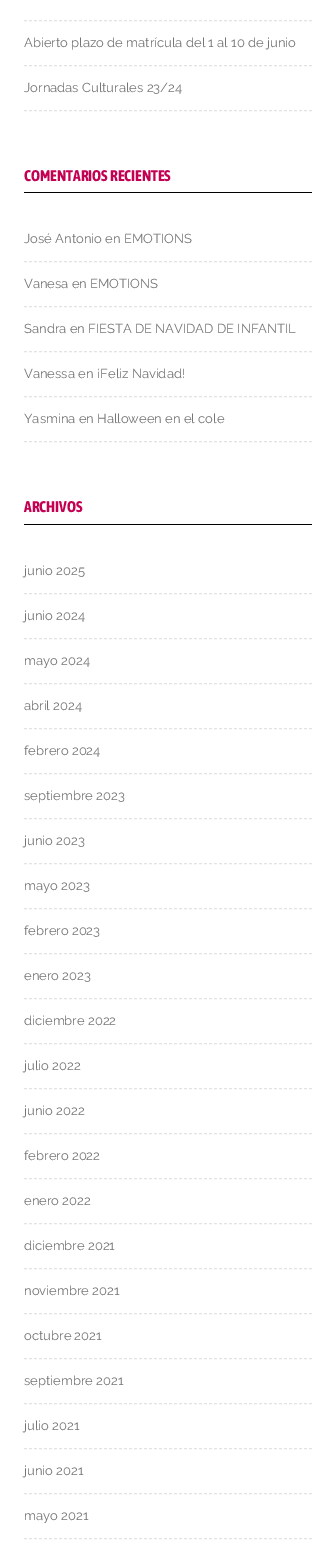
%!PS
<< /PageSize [336 1549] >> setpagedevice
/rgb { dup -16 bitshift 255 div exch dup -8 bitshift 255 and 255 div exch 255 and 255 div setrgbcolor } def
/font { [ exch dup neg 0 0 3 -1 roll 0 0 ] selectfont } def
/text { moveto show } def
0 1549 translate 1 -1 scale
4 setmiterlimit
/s1 { /Raleway-Regular 13 font 16#757575 rgb } def
/s2 { /AsapCondensed-Bold 15.5 font 16#C40053 rgb } def
16#FFFFFF rgb
0 0 336 1549 rectfill
16#E3E3E3 rgb
[3 2] 0 setdash
24 20.5 moveto 312 20.5 lineto stroke
24 65.5 moveto 312 65.5 lineto stroke
s1
(Abierto plazo de matrícula del 1 al 10 de junio) 24 47 text
16#E3E3E3 rgb
24 110.5 moveto 312 110.5 lineto stroke
s1
(Jornadas Culturales 23/24) 24 92 text
16#000000 rgb
24 192 288 1 rectfill
s2
(COMENTARIOS RECIENTES) 24 181 text
16#E3E3E3 rgb
24 261.5 moveto 312 261.5 lineto stroke
s1
(José Antonio en) 24 243 text
(EMOTIONS) 124 243 text
16#E3E3E3 rgb
24 306.5 moveto 312 306.5 lineto stroke
s1
(Vanesa en) 24 288 text
(EMOTIONS) 90 288 text
16#E3E3E3 rgb
24 351.5 moveto 312 351.5 lineto stroke
s1
(Sandra en) 24 333 text
(FIESTA DE NAVIDAD DE INFANTIL) 88 333 text
16#E3E3E3 rgb
24 396.5 moveto 312 396.5 lineto stroke
s1
(Vanessa en) 24 378 text
(¡Feliz Navidad!) 97 378 text
16#E3E3E3 rgb
24 441.5 moveto 312 441.5 lineto stroke
s1
(Yasmina en) 24 423 text
(Halloween en el cole) 97 423 text
16#000000 rgb
24 524 288 1 rectfill
s2
(ARCHIVOS) 24 512 text
16#E3E3E3 rgb
24 593.5 moveto 312 593.5 lineto stroke
s1
(junio 2025) 24 575 text
16#E3E3E3 rgb
24 638.5 moveto 312 638.5 lineto stroke
s1
(junio 2024) 24 620 text
16#E3E3E3 rgb
24 683.5 moveto 312 683.5 lineto stroke
s1
(mayo 2024) 24 665 text
16#E3E3E3 rgb
24 728.5 moveto 312 728.5 lineto stroke
s1
(abril 2024) 24 710 text
16#E3E3E3 rgb
24 773.5 moveto 312 773.5 lineto stroke
s1
(febrero 2024) 24 755 text
16#E3E3E3 rgb
24 818.5 moveto 312 818.5 lineto stroke
s1
(septiembre 2023) 24 800 text
16#E3E3E3 rgb
24 863.5 moveto 312 863.5 lineto stroke
s1
(junio 2023) 24 845 text
16#E3E3E3 rgb
24 908.5 moveto 312 908.5 lineto stroke
s1
(mayo 2023) 24 890 text
16#E3E3E3 rgb
24 953.5 moveto 312 953.5 lineto stroke
s1
(febrero 2023) 24 935 text
16#E3E3E3 rgb
24 998.5 moveto 312 998.5 lineto stroke
s1
(enero 2023) 24 980 text
16#E3E3E3 rgb
24 1043.5 moveto 312 1043.5 lineto stroke
s1
(diciembre 2022) 24 1025 text
16#E3E3E3 rgb
24 1088.5 moveto 312 1088.5 lineto stroke
s1
(julio 2022) 24 1070 text
16#E3E3E3 rgb
24 1133.5 moveto 312 1133.5 lineto stroke
s1
(junio 2022) 24 1115 text
16#E3E3E3 rgb
24 1178.5 moveto 312 1178.5 lineto stroke
s1
(febrero 2022) 24 1160 text
16#E3E3E3 rgb
24 1223.5 moveto 312 1223.5 lineto stroke
s1
(enero 2022) 24 1205 text
16#E3E3E3 rgb
24 1268.5 moveto 312 1268.5 lineto stroke
s1
(diciembre 2021) 24 1250 text
16#E3E3E3 rgb
24 1313.5 moveto 312 1313.5 lineto stroke
s1
(noviembre 2021) 24 1295 text
16#E3E3E3 rgb
24 1358.5 moveto 312 1358.5 lineto stroke
s1
(octubre 2021) 24 1340 text
16#E3E3E3 rgb
24 1403.5 moveto 312 1403.5 lineto stroke
s1
(septiembre 2021) 24 1385 text
16#E3E3E3 rgb
24 1448.5 moveto 312 1448.5 lineto stroke
s1
(julio 2021) 24 1430 text
16#E3E3E3 rgb
24 1493.5 moveto 312 1493.5 lineto stroke
s1
(junio 2021) 24 1475 text
16#E3E3E3 rgb
24 1538.5 moveto 312 1538.5 lineto stroke
s1
(mayo 2021) 24 1520 text
showpage
